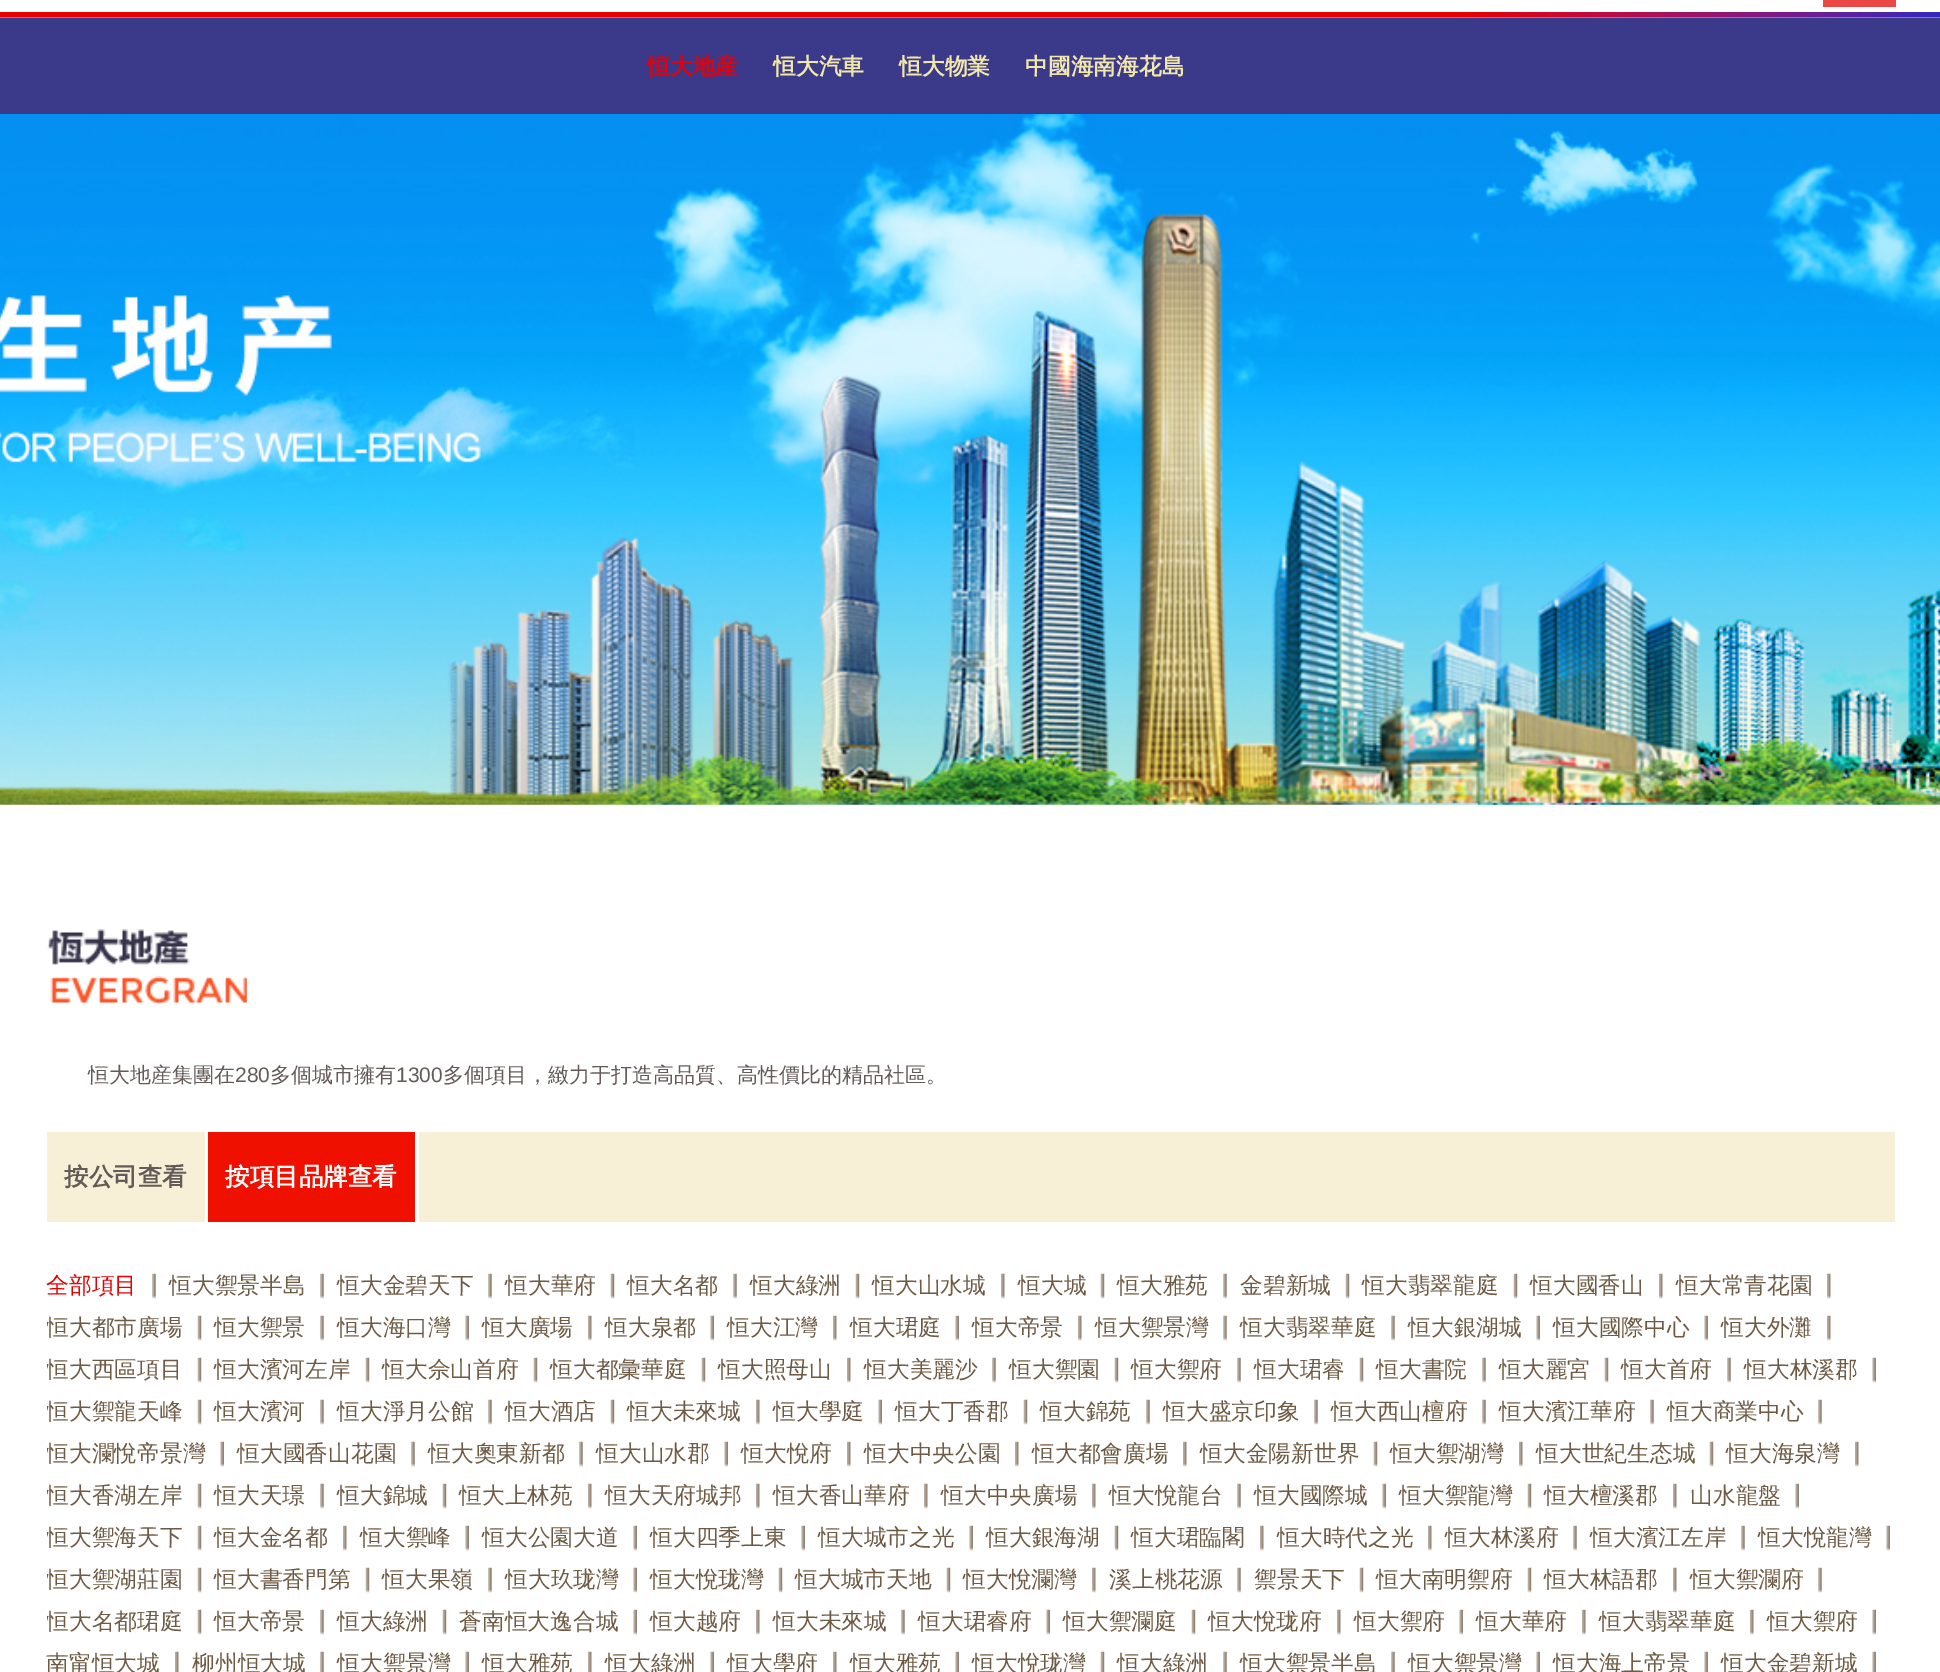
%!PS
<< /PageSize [1940 1672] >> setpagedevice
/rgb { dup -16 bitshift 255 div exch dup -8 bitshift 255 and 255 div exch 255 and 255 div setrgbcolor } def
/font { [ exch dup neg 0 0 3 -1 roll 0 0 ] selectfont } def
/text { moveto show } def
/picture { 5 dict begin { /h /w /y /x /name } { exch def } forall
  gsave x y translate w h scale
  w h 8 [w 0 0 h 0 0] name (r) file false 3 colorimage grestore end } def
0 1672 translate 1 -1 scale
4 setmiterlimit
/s1 { /WenQuanYiZenHei-Bold 22.75 font 16#E80009 rgb } def
/s2 { /WenQuanYiZenHei-Bold 22.75 font 16#F1E7AB rgb } def
/s3 { /WenQuanYiZenHei-Medium 21 font 16#645B58 rgb } def
/s4 { /LiberationSans-Regular 21 font 16#645B58 rgb } def
/s5 { /WenQuanYiZenHei-Bold 24.5 font 16#645B58 rgb } def
/s6 { /WenQuanYiZenHei-Bold 24.5 font 16#FFFFFF rgb } def
/s7 { /WenQuanYiZenHei-Medium 22.75 font 16#E80000 rgb } def
/s8 { /WenQuanYiZenHei-Medium 22.75 font 16#6F5A43 rgb } def
16#FFFFFF rgb
0 0 1940 1672 rectfill
(pic1.raw) 0 12 1940 6 picture
16#EB4745 rgb
1823 0 73 7 rectfill
(pic2.raw) 0 17 1940 788 picture
16#3B3989 rgb
0 18 1940 96 rectfill
s1
(恒大地産) 647 74 text
s2
(恒大汽車) 773 74 text
(恒大物業) 899 74 text
(中國海南海花島) 1025 74 text
(pic3.raw) 47 929 200 76 picture
s3
(恒大地産集團在) 88 1082 text
s4
(280) 235 1082 text
s3
(多個城市擁有) 270 1082 text
s4
(1300) 396 1082 text
s3
(多個項目，緻力于打造高品質、高性價比的精品社區。) 443 1082 text
16#F7F0D6 rgb
47 1132 1848 90 rectfill
16#FFFFFF rgb
205 1132 3 90 rectfill
s5
(按公司查看) 64 1185 text
16#F01000 rgb
208 1132 207 90 rectfill
16#FFFFFF rgb
415 1132 4 90 rectfill
(按項目品牌查看) 225 1185 text
(pic4.raw) 152 1273 4 26 picture
s7
(全部項目) 46 1293 text
(pic4.raw) 320 1273 4 26 picture
s8
(恒大禦景半島) 169 1293 text
(pic4.raw) 488 1273 4 26 picture
(恒大金碧天下) 337 1293 text
(pic5.raw) 610 1273 5 26 picture
(恒大華府) 505 1293 text
(pic4.raw) 733 1273 4 26 picture
(恒大名都) 627 1293 text
(pic5.raw) 855 1273 5 26 picture
(恒大綠洲) 750 1293 text
(pic6.raw) 1001 1273 4 26 picture
(恒大山水城) 872 1293 text
(pic7.raw) 1100 1273 5 26 picture
(恒大城) 1018 1293 text
(pic4.raw) 1223 1273 4 26 picture
(恒大雅苑) 1117 1293 text
(pic7.raw) 1345 1273 5 26 picture
(金碧新城) 1240 1293 text
(pic5.raw) 1513 1273 5 26 picture
(恒大翡翠龍庭) 1362 1293 text
(pic6.raw) 1659 1273 4 26 picture
(恒大國香山) 1530 1293 text
(pic6.raw) 1827 1273 4 26 picture
(恒大常青花園) 1676 1293 text
(pic7.raw) 197 1315 5 26 picture
gsave
47 845 1848 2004 rectclip
(恒大都市廣場) 46 1335 text
grestore
(pic4.raw) 320 1315 4 26 picture
(恒大禦景) 214 1335 text
(pic8.raw) 465 1315 4 26 picture
(恒大海口灣) 337 1335 text
(pic6.raw) 588 1315 4 26 picture
(恒大廣場) 482 1335 text
(pic8.raw) 710 1315 4 26 picture
(恒大泉都) 605 1335 text
(pic6.raw) 833 1315 4 26 picture
(恒大江灣) 727 1335 text
(pic8.raw) 955 1315 4 26 picture
(恒大珺庭) 850 1335 text
(pic6.raw) 1078 1315 4 26 picture
(恒大帝景) 972 1335 text
(pic4.raw) 1223 1315 4 26 picture
(恒大禦景灣) 1095 1335 text
(pic4.raw) 1391 1315 4 26 picture
(恒大翡翠華庭) 1240 1335 text
(pic8.raw) 1536 1315 4 26 picture
(恒大銀湖城) 1408 1335 text
(pic8.raw) 1704 1315 4 26 picture
(恒大國際中心) 1553 1335 text
(pic6.raw) 1827 1315 4 26 picture
(恒大外灘) 1721 1335 text
(pic7.raw) 197 1357 5 26 picture
gsave
47 845 1848 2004 rectclip
(恒大西區項目) 46 1377 text
grestore
(pic5.raw) 365 1357 5 26 picture
(恒大濱河左岸) 214 1377 text
(pic7.raw) 533 1357 5 26 picture
(恒大佘山首府) 382 1377 text
(pic7.raw) 701 1357 5 26 picture
(恒大都彙華庭) 550 1377 text
(pic6.raw) 847 1357 4 26 picture
(恒大照母山) 718 1377 text
(pic4.raw) 992 1357 4 26 picture
(恒大美麗沙) 864 1377 text
(pic5.raw) 1114 1357 5 26 picture
(恒大禦園) 1009 1377 text
(pic4.raw) 1237 1357 4 26 picture
(恒大禦府) 1131 1377 text
(pic7.raw) 1359 1357 5 26 picture
(恒大珺睿) 1254 1377 text
(pic4.raw) 1482 1357 4 26 picture
(恒大書院) 1376 1377 text
(pic7.raw) 1604 1357 5 26 picture
(恒大麗宮) 1499 1377 text
(pic4.raw) 1727 1357 4 26 picture
(恒大首府) 1621 1377 text
(pic8.raw) 1872 1357 4 26 picture
(恒大林溪郡) 1744 1377 text
(pic7.raw) 197 1399 5 26 picture
gsave
47 845 1848 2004 rectclip
(恒大禦龍天峰) 46 1419 text
grestore
(pic4.raw) 320 1399 4 26 picture
(恒大濱河) 214 1419 text
(pic4.raw) 488 1399 4 26 picture
(恒大淨月公館) 337 1419 text
(pic5.raw) 610 1399 5 26 picture
(恒大酒店) 505 1419 text
(pic6.raw) 756 1399 4 26 picture
(恒大未來城) 627 1419 text
(pic8.raw) 878 1399 4 26 picture
(恒大學庭) 773 1419 text
(pic7.raw) 1023 1399 5 26 picture
(恒大丁香郡) 895 1419 text
(pic4.raw) 1146 1399 4 26 picture
(恒大錦苑) 1040 1419 text
(pic4.raw) 1314 1399 4 26 picture
(恒大盛京印象) 1163 1419 text
(pic4.raw) 1482 1399 4 26 picture
(恒大西山檀府) 1331 1419 text
(pic4.raw) 1650 1399 4 26 picture
(恒大濱江華府) 1499 1419 text
(pic4.raw) 1818 1399 4 26 picture
(恒大商業中心) 1667 1419 text
(pic8.raw) 220 1441 4 26 picture
gsave
47 845 1848 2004 rectclip
(恒大瀾悅帝景灣) 46 1461 text
grestore
(pic4.raw) 411 1441 4 26 picture
(恒大國香山花園) 237 1461 text
(pic4.raw) 579 1441 4 26 picture
(恒大奧東新都) 428 1461 text
(pic8.raw) 724 1441 4 26 picture
(恒大山水郡) 596 1461 text
(pic6.raw) 847 1441 4 26 picture
(恒大悅府) 741 1461 text
(pic6.raw) 1015 1441 4 26 picture
(恒大中央公園) 864 1461 text
(pic6.raw) 1183 1441 4 26 picture
(恒大都會廣場) 1032 1461 text
(pic7.raw) 1373 1441 5 26 picture
(恒大金陽新世界) 1200 1461 text
(pic6.raw) 1519 1441 4 26 picture
(恒大禦湖灣) 1390 1461 text
(pic5.raw) 1709 1441 5 26 picture
(恒大世紀生态城) 1536 1461 text
(pic6.raw) 1855 1441 4 26 picture
(恒大海泉灣) 1726 1461 text
(pic7.raw) 197 1483 5 26 picture
gsave
47 845 1848 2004 rectclip
(恒大香湖左岸) 46 1503 text
grestore
(pic4.raw) 320 1483 4 26 picture
(恒大天璟) 214 1503 text
(pic5.raw) 442 1483 5 26 picture
(恒大錦城) 337 1503 text
(pic6.raw) 588 1483 4 26 picture
(恒大上林苑) 459 1503 text
(pic6.raw) 756 1483 4 26 picture
(恒大天府城邦) 605 1503 text
(pic6.raw) 924 1483 4 26 picture
(恒大香山華府) 773 1503 text
(pic6.raw) 1092 1483 4 26 picture
(恒大中央廣場) 941 1503 text
(pic4.raw) 1237 1483 4 26 picture
(恒大悅龍台) 1109 1503 text
(pic8.raw) 1382 1483 4 26 picture
(恒大國際城) 1254 1503 text
(pic5.raw) 1527 1483 5 26 picture
(恒大禦龍灣) 1399 1503 text
(pic6.raw) 1673 1483 4 26 picture
(恒大檀溪郡) 1544 1503 text
(pic8.raw) 1795 1483 4 26 picture
(山水龍盤) 1690 1503 text
(pic7.raw) 197 1525 5 26 picture
gsave
47 845 1848 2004 rectclip
(恒大禦海天下) 46 1545 text
grestore
(pic6.raw) 343 1525 4 26 picture
(恒大金名都) 214 1545 text
(pic8.raw) 465 1525 4 26 picture
(恒大禦峰) 360 1545 text
(pic8.raw) 633 1525 4 26 picture
(恒大公園大道) 482 1545 text
(pic8.raw) 801 1525 4 26 picture
(恒大四季上東) 650 1545 text
(pic8.raw) 969 1525 4 26 picture
(恒大城市之光) 818 1545 text
(pic5.raw) 1114 1525 5 26 picture
(恒大銀海湖) 986 1545 text
(pic6.raw) 1260 1525 4 26 picture
(恒大珺臨閣) 1131 1545 text
(pic6.raw) 1428 1525 4 26 picture
(恒大時代之光) 1277 1545 text
(pic4.raw) 1573 1525 4 26 picture
(恒大林溪府) 1445 1545 text
(pic4.raw) 1741 1525 4 26 picture
(恒大濱江左岸) 1590 1545 text
(pic8.raw) 1886 1525 4 26 picture
(恒大悅龍灣) 1758 1545 text
(pic7.raw) 197 1567 5 26 picture
gsave
47 845 1848 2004 rectclip
(恒大禦湖莊園) 46 1587 text
grestore
(pic5.raw) 365 1567 5 26 picture
(恒大書香門第) 214 1587 text
(pic4.raw) 488 1567 4 26 picture
(恒大果嶺) 382 1587 text
(pic8.raw) 633 1567 4 26 picture
(恒大玖珑灣) 505 1587 text
(pic7.raw) 778 1567 5 26 picture
(恒大悅珑灣) 650 1587 text
(pic5.raw) 946 1567 5 26 picture
(恒大城市天地) 795 1587 text
(pic6.raw) 1092 1567 4 26 picture
(恒大悅瀾灣) 963 1587 text
(pic4.raw) 1237 1567 4 26 picture
(溪上桃花源) 1109 1587 text
(pic7.raw) 1359 1567 5 26 picture
(禦景天下) 1254 1587 text
(pic5.raw) 1527 1567 5 26 picture
(恒大南明禦府) 1376 1587 text
(pic6.raw) 1673 1567 4 26 picture
(恒大林語郡) 1544 1587 text
(pic4.raw) 1818 1567 4 26 picture
(恒大禦瀾府) 1690 1587 text
(pic9.raw) 197 1609 5 26 picture
gsave
47 845 1848 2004 rectclip
(恒大名都珺庭) 46 1629 text
grestore
(pic10.raw) 320 1609 4 26 picture
(恒大帝景) 214 1629 text
(pic11.raw) 442 1609 5 26 picture
(恒大綠洲) 337 1629 text
(pic12.raw) 633 1609 4 26 picture
(蒼南恒大逸合城) 459 1629 text
(pic13.raw) 756 1609 4 26 picture
(恒大越府) 650 1629 text
(pic10.raw) 901 1609 4 26 picture
(恒大未來城) 773 1629 text
(pic12.raw) 1046 1609 4 26 picture
(恒大珺睿府) 918 1629 text
(pic11.raw) 1191 1609 5 26 picture
(恒大禦瀾庭) 1063 1629 text
(pic13.raw) 1337 1609 4 26 picture
(恒大悅珑府) 1208 1629 text
(pic12.raw) 1459 1609 4 26 picture
(恒大禦府) 1354 1629 text
(pic13.raw) 1582 1609 4 26 picture
(恒大華府) 1476 1629 text
(pic13.raw) 1750 1609 4 26 picture
(恒大翡翠華庭) 1599 1629 text
(pic12.raw) 1872 1609 4 26 picture
(恒大禦府) 1767 1629 text
(pic14.raw) 175 1651 4 21 picture
(南甯恒大城) 46 1671 text
(pic15.raw) 320 1651 4 21 picture
(柳州恒大城) 192 1671 text
(pic16.raw) 465 1651 4 21 picture
(恒大禦景灣) 337 1671 text
(pic14.raw) 588 1651 4 21 picture
(恒大雅苑) 482 1671 text
(pic16.raw) 710 1651 4 21 picture
(恒大綠洲) 605 1671 text
(pic14.raw) 833 1651 4 21 picture
(恒大學府) 727 1671 text
(pic16.raw) 955 1651 4 21 picture
(恒大雅苑) 850 1671 text
(pic17.raw) 1100 1651 5 21 picture
(恒大悅珑灣) 972 1671 text
(pic15.raw) 1223 1651 4 21 picture
(恒大綠洲) 1117 1671 text
(pic15.raw) 1391 1651 4 21 picture
(恒大禦景半島) 1240 1671 text
(pic16.raw) 1536 1651 4 21 picture
(恒大禦景灣) 1408 1671 text
(pic16.raw) 1704 1651 4 21 picture
(恒大海上帝景) 1553 1671 text
(pic16.raw) 1872 1651 4 21 picture
(恒大金碧新城) 1721 1671 text
showpage
